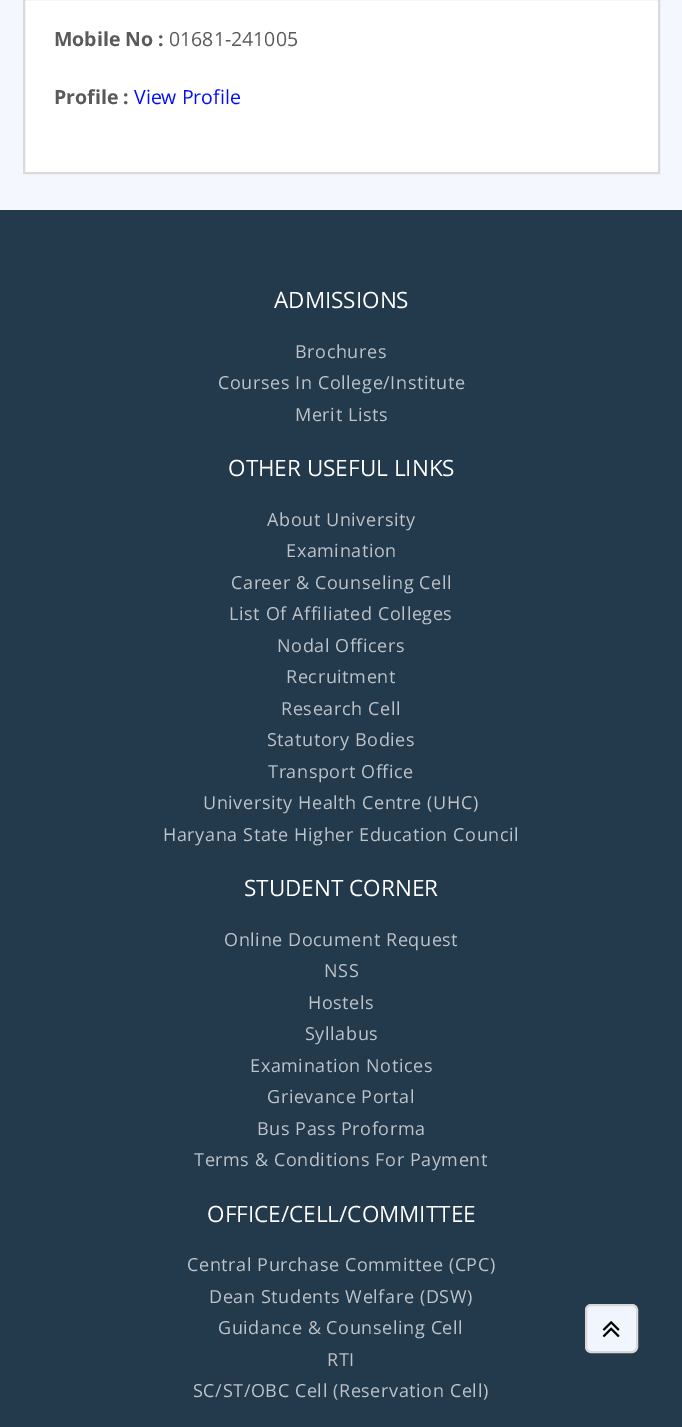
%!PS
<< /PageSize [682 1427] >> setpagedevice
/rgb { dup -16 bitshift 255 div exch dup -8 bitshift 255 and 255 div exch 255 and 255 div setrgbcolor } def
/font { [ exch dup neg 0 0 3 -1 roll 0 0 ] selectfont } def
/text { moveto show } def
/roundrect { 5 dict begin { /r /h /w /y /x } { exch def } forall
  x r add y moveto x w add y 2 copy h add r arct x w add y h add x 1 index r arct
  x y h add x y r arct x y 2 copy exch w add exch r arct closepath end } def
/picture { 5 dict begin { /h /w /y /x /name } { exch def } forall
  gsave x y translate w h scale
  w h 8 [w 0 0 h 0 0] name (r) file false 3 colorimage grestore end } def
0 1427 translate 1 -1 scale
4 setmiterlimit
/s1 { /OpenSans-Bold 19.5 font 16#5A5A5A rgb } def
/s2 { /OpenSans-Regular 19.5 font 16#5A5A5A rgb } def
/s3 { /OpenSans-Regular 19.5 font 16#000DFF rgb } def
/s4 { /OpenSans-Regular 22.5 font 16#FFFFFF rgb } def
16#F5F7FF rgb
0 0 682 1427 rectfill
16#FFFFFF rgb
24 -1 moveto 659 -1 lineto 659 173 lineto 24 173 lineto closepath gsave fill grestore
16#DADADA rgb
2 setlinewidth
stroke
s1
(Mobile No :) 54 46 text
s2
(01681-241005) 169 46 text
s1
(Profile :) 54 104 text
s3
(View Profile) 134 104 text
16#23394C rgb
0 210 682 1217 rectfill
s4
(ADMISSIONS) 274 308 text
/OpenSans-Regular 18 font
16#BDC4C9 rgb
295 358 moveto 0.6 0 (Brochures) ashow
218 389 moveto 0.6 0 (Courses In College/Institute) ashow
295 421 moveto 0.6 0 (Merit Lists) ashow
s4
(OTHER USEFUL LINKS) 228 476 text
/OpenSans-Regular 18 font
16#BDC4C9 rgb
267 526 moveto 0.6 0 (About University) ashow
286 557 moveto 0.6 0 (Examination) ashow
231 589 moveto 0.6 0 (Career & Counseling Cell) ashow
229 620 moveto 0.6 0 (List Of Affiliated Colleges) ashow
277 652 moveto 0.6 0 (Nodal Officers) ashow
286 683 moveto 0.6 0 (Recruitment) ashow
281 715 moveto 0.6 0 (Research Cell) ashow
267 746 moveto 0.6 0 (Statutory Bodies) ashow
268 778 moveto 0.6 0 (Transport Office) ashow
203 809 moveto 0.6 0 (University Health Centre \(UHC\)) ashow
163 841 moveto 0.6 0 (Haryana State Higher Education Council) ashow
s4
(STUDENT CORNER) 244 896 text
/OpenSans-Regular 18 font
16#BDC4C9 rgb
224 946 moveto 0.6 0 (Online Document Request) ashow
324 977 moveto 0.6 0 (NSS) ashow
308 1009 moveto 0.6 0 (Hostels) ashow
305 1040 moveto 0.6 0 (Syllabus) ashow
250 1072 moveto 0.6 0 (Examination Notices) ashow
267 1103 moveto 0.6 0 (Grievance Portal) ashow
257 1135 moveto 0.6 0 (Bus Pass Proforma) ashow
194 1166 moveto 0.6 0 (Terms & Conditions For Payment) ashow
s4
(OFFICE/CELL/COMMITTEE) 207 1222 text
/OpenSans-Regular 18 font
16#BDC4C9 rgb
187 1271 moveto 0.6 0 (Central Purchase Committee \(CPC\)) ashow
209 1303 moveto 0.6 0 (Dean Students Welfare \(DSW\)) ashow
218 1334 moveto 0.6 0 (Guidance & Counseling Cell) ashow
327 1366 moveto 0.6 0 (RTI) ashow
193 1397 moveto 0.6 0 (SC/ST/OBC Cell \(Reservation Cell\)) ashow
16#F1F6FE rgb
586 1305 51 47 5 roundrect gsave fill grestore
16#D8D8D8 rgb
stroke
(pic1.raw) 602 1321 18 17 picture
showpage
